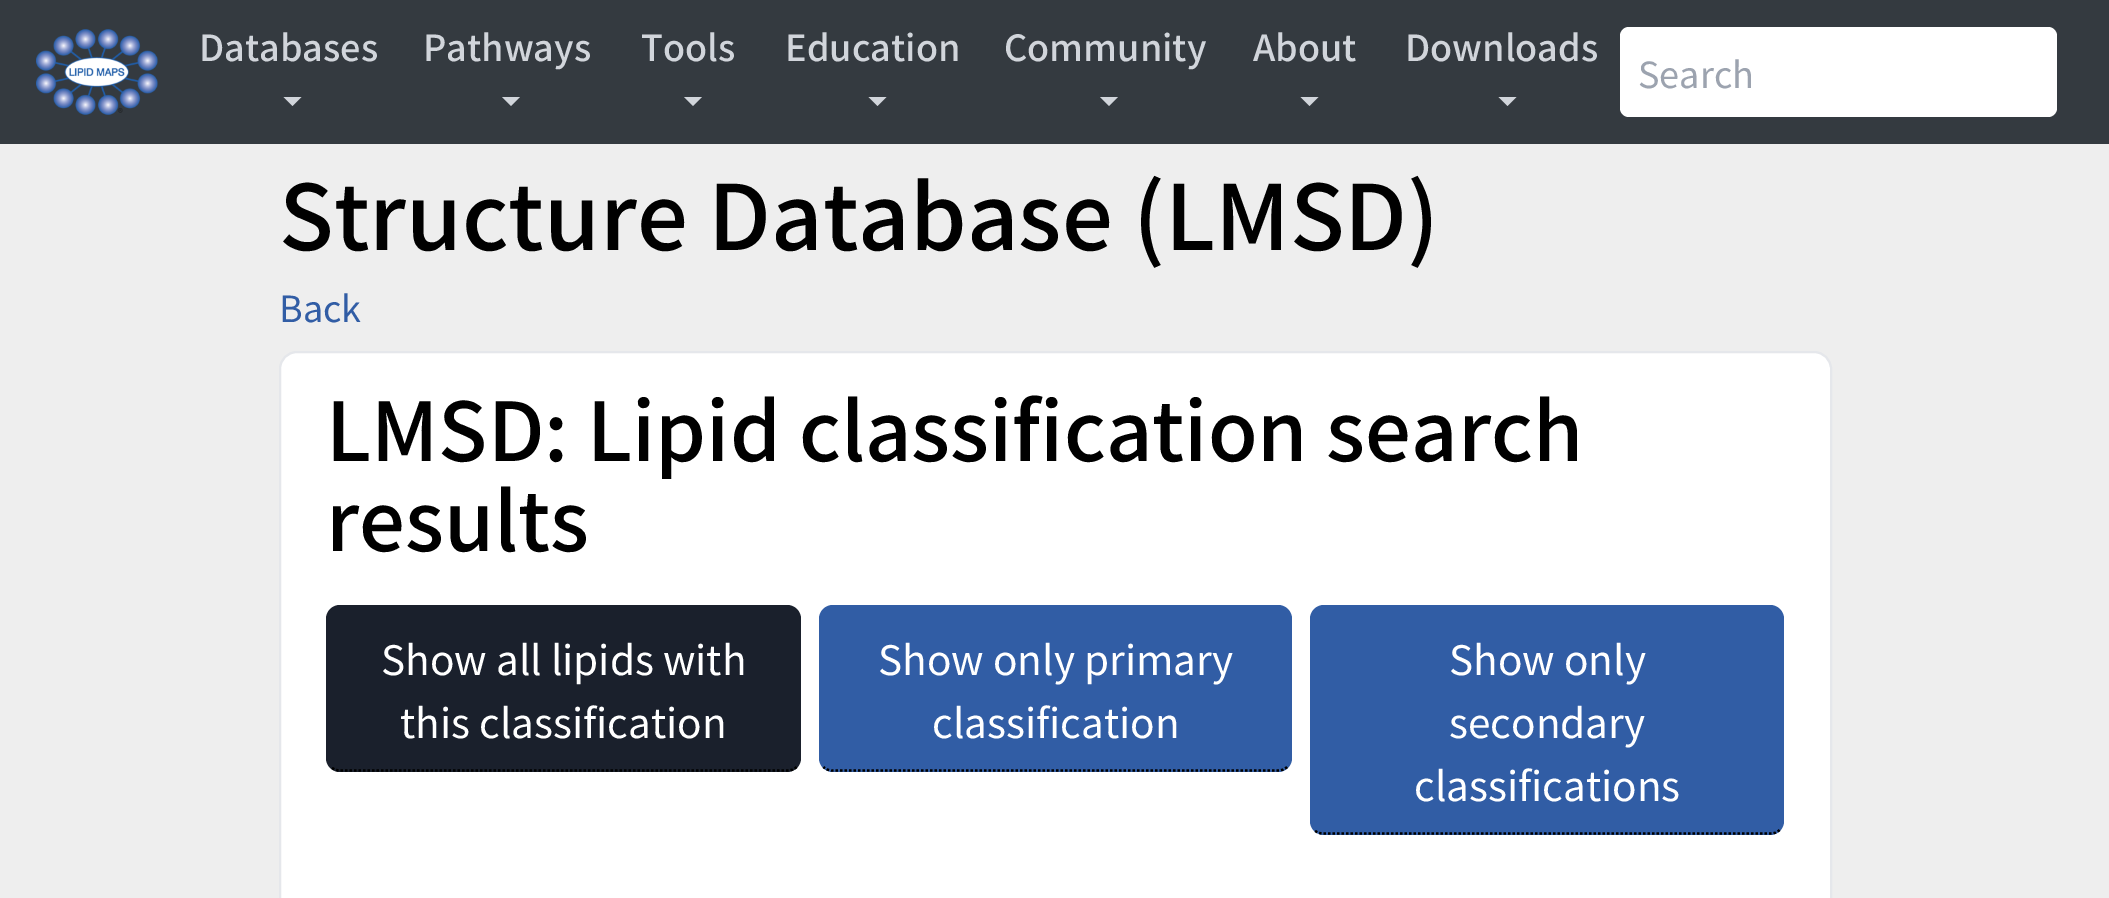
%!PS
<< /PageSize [2109 898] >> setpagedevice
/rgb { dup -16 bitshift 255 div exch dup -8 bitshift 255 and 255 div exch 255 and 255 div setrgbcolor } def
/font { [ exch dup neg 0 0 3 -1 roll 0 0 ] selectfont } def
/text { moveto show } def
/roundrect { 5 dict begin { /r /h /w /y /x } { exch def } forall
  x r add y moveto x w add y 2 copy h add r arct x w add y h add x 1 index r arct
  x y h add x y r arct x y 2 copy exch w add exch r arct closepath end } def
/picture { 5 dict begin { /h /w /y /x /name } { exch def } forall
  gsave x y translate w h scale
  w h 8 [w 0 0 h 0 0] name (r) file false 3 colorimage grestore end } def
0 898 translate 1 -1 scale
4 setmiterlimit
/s1 { /NotoSansJP-Medium 36 font 16#D1D5DB rgb } def
/s2 { /NotoSansJP-Regular 36 font 16#9CA3AF rgb } def
/s3 { /NotoSansJP-Medium 90 font 16#000000 rgb } def
/s4 { /NotoSansJP-Regular 36 font 16#315DA5 rgb } def
/s5 { /NotoSansJP-Medium 81 font 16#000000 rgb } def
/s6 { /NotoSansJP-Regular 40.5 font 16#FFFFFF rgb } def
16#EEEEEE rgb
0 0 2109 898 rectfill
16#343A40 rgb
0 0 2109 144 rectfill
(pic1.raw) 36 29 122 86 picture
s1
(Databases) 199 61 text
283.5 97 moveto 301.5 97 lineto 292.5 106 lineto closepath fill
(Pathways) 423 61 text
502 97 moveto 520 97 lineto 511 106 lineto closepath fill
(Tools) 641 61 text
684 97 moveto 702 97 lineto 693 106 lineto closepath fill
(Education) 785 61 text
868.5 97 moveto 886.5 97 lineto 877.5 106 lineto closepath fill
(Community) 1004 61 text
1100 97 moveto 1118 97 lineto 1109 106 lineto closepath fill
(About) 1253 61 text
1300.5 97 moveto 1318.5 97 lineto 1309.5 106 lineto closepath fill
(Downloads) 1405 61 text
1498.5 97 moveto 1516.5 97 lineto 1507.5 106 lineto closepath fill
16#FFFFFF rgb
1620 27 437 90 9 roundrect fill
s2
(Search) 1638 88 text
s3
(Structure Database \(LMSD\)) 279 250 text
s4
(Back) 279 322 text
16#FFFFFF rgb
280 352 1551 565 17 roundrect gsave fill grestore
16#E5E7EB rgb
2 setlinewidth
stroke
s5
(LMSD: Lipid classification search) 326 461 text
(results) 326 551 text
16#1A202C rgb
326 605 475 167 14 roundrect fill
16#000000 rgb
2.2 setlinewidth
[2.25 2.25] 0 setdash
796.5 767 moveto 794 769.5 791 770.5 787.5 770.5 curveto 340 770.5 lineto 336.5 770.5 333.5 769.5 331 767 curveto stroke
s6
(Show all lipids with) 381 675 text
(this classification) 400 738 text
16#315DA5 rgb
819 605 473 167 14 roundrect fill
16#000000 rgb
1287 767 moveto 1284.5 769.5 1281.5 770.5 1278 770.5 curveto 832.5 770.5 lineto 829 770.5 826 769.5 823.5 767 curveto stroke
s6
(Show only primary) 878 675 text
(classification) 932 738 text
16#315DA5 rgb
1310 605 474 230 14 roundrect fill
16#000000 rgb
1779.5 830 moveto 1777 832.5 1774 833.5 1771 833.5 curveto 1323 833.5 lineto 1319.5 833.5 1316.5 832.5 1314 830 curveto stroke
s6
(Show only) 1449 675 text
(secondary) 1449 738 text
(classifications) 1414 801 text
showpage
